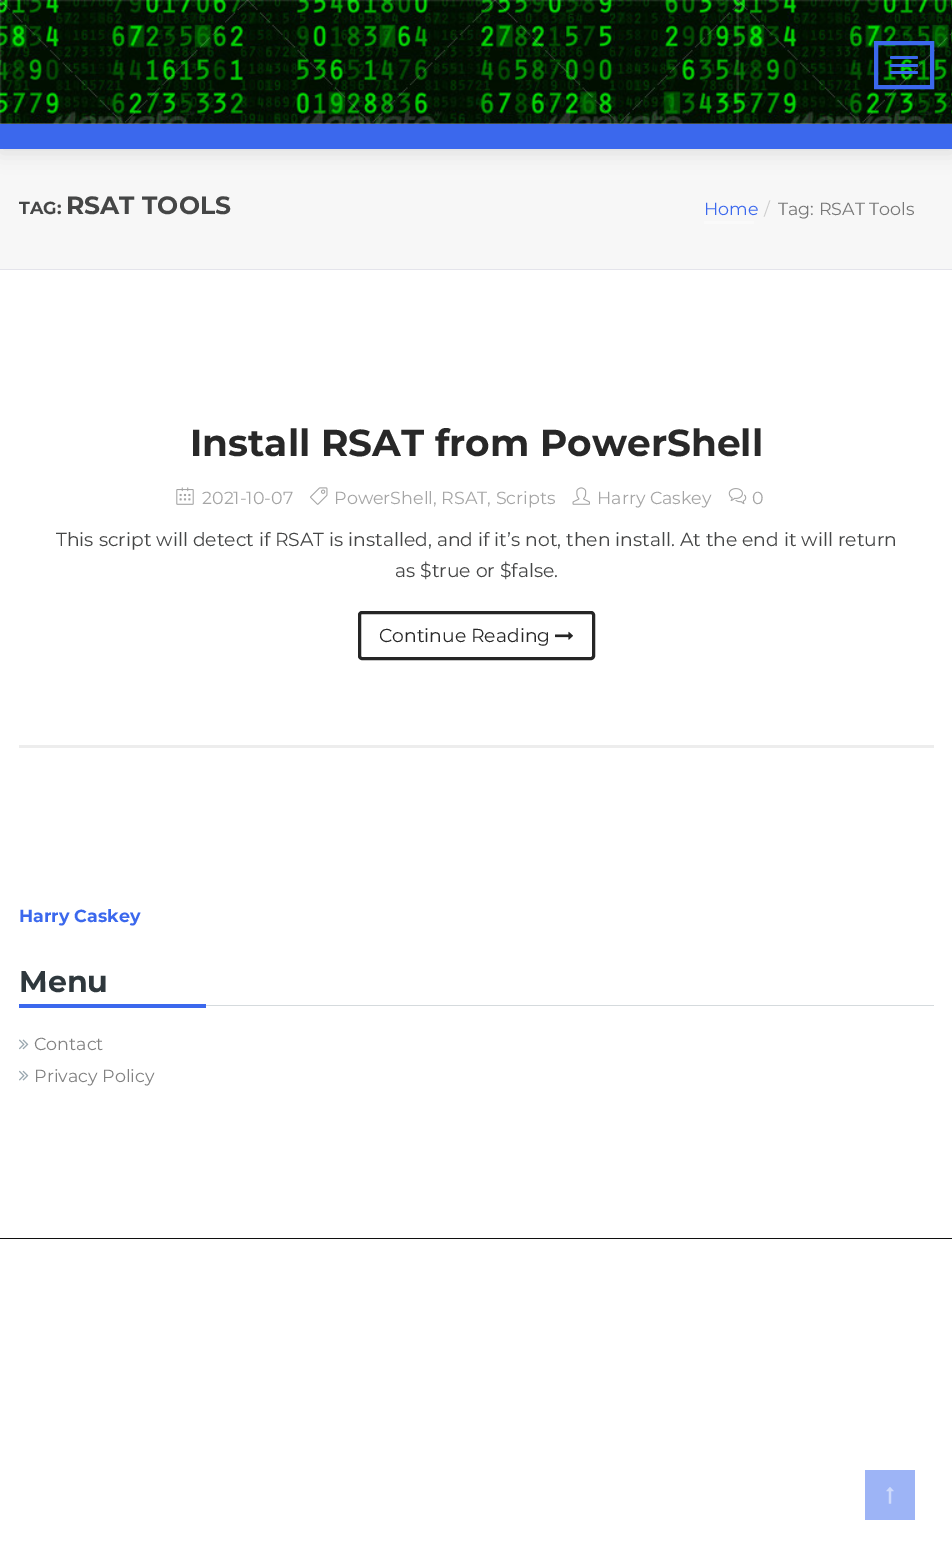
%!PS
<< /PageSize [952 1551] /PageUsesTransparency true >> setpagedevice
/rgb { dup -16 bitshift 255 div exch dup -8 bitshift 255 and 255 div exch 255 and 255 div setrgbcolor } def
/font { [ exch dup neg 0 0 3 -1 roll 0 0 ] selectfont } def
/text { moveto show } def
/alpha { dup .setfillconstantalpha .setstrokeconstantalpha } def
/roundrect { 5 dict begin { /r /h /w /y /x } { exch def } forall
  x r add y moveto x w add y 2 copy h add r arct x w add y h add x 1 index r arct
  x y h add x y r arct x y 2 copy exch w add exch r arct closepath end } def
/shadow { 12 dict begin { /a /b /q /h /w /y /x } { exch def } forall gsave /was 0 def
  9 -2 -9 { dup b mul 4 div /e exch def 1 sub .425 mul 2.718 exch exp 1 add a .99 .min exch div /now exch def
    1 1 now sub 1 was sub div sub alpha /was now def
    w h .min e 2 mul add 0 gt { x e sub y e sub w e 2 mul add h e 2 mul add
      q e add b .6 mul add w h .min 2 div e add .min 0 .max roundrect fill } if } for grestore end } def
/picture { 5 dict begin { /h /w /y /x /name } { exch def } forall
  gsave x y translate w h scale
  w h 8 [w 0 0 h 0 0] name (r) file false 3 colorimage grestore end } def
0 .pushpdf14devicefilter
0 1551 translate 1 -1 scale
4 setmiterlimit
/s1 { /Montserrat-Bold 17.5 font 16#454646 rgb } def
/s2 { /Montserrat-Bold 25 font 16#454646 rgb } def
/s3 { /Montserrat-Regular 17.5 font 16#3B68ED rgb } def
/s4 { /Montserrat-Regular 17.5 font 16#CCCCCC rgb } def
/s5 { /Montserrat-Regular 17.5 font 16#777777 rgb } def
/s6 { /Montserrat-Bold 37.5 font 16#282828 rgb } def
/s7 { /Montserrat-Regular 17.5 font 16#A5A5A5 rgb } def
/s8 { /Montserrat-Regular 18.75 font 16#454646 rgb } def
/s9 { /Montserrat-Regular 18.75 font 16#282828 rgb } def
/s10 { /Montserrat-Bold 17.5 font 16#3B68ED rgb } def
/s11 { /Montserrat-Bold 30 font 16#2F383D rgb } def
/s12 { /Montserrat-Regular 17.5 font 16#828282 rgb } def
16#FFFFFF rgb
0 0 952 1551 rectfill
(pic1.raw) 0 0 952 124 picture
16#3B68ED rgb
4 setlinewidth
876 43 56 44 rectstroke
890 56 28 3 1.5 roundrect fill
890 64 28 3 1.5 roundrect fill
890 71 28 3 1.5 roundrect fill
16#F7F7F7 rgb
0 149 952 120 rectfill
16#000000 rgb
0 128 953 25 0 9.5 0.1 shadow
16#3B68ED rgb
0 124 952 25 rectfill
16#E4E4EB rgb
0 269 952 1 rectfill
s1
(TAG:) 19 214 text
s2
(RSAT TOOLS) 66 214 text
s3
(Home) 704 215 text
s4
(/) 764 215 text
16#FAFAFA rgb
704 221 50 3 rectfill
s5
(Tag: RSAT Tools) 778 215 text
s6
(Install RSAT from PowerShell) 190 456 text
(pic2.raw) 176 487 18 18 picture
s7
(2021-10-07) 202 504 text
(pic3.raw) 310 487 18 18 picture
(PowerShell, RSAT, Scripts) 334 504 text
(pic4.raw) 572 487 18 18 picture
(Harry Caskey) 597 504 text
(pic5.raw) 728 488 19 17 picture
(0) 752 504 text
s8
(This script will detect if RSAT is installed, and if it’s not, then install. At the end it will return) 56 546 text
(as $true or $false.) 395 577 text
16#252525 rgb
3 setlinewidth
359.5 612.5 234 46 2.5 roundrect stroke
s9
(Continue Reading) 379 642 text
(pic6.raw) 555 631 18 9 picture
16#EDEDED rgb
19 745 915 3 rectfill
s10
(Harry Caskey) 19 922 text
16#D5DADD rgb
206 1005 728 1 rectfill
s11
(Menu) 19 992 text
16#3B68ED rgb
19 1004 187 4 rectfill
(pic7.raw) 19 1039 10 11 picture
s12
(Contact) 34 1050 text
(pic8.raw) 19 1070 10 11 picture
(Privacy Policy) 34 1082 text
16#101010 rgb
0 1238 952 1 rectfill
16#9DB4F6 rgb
865 1470 50 50 rectfill
(pic9.raw) 886 1487 8 17 picture
.poppdf14devicefilter showpage
